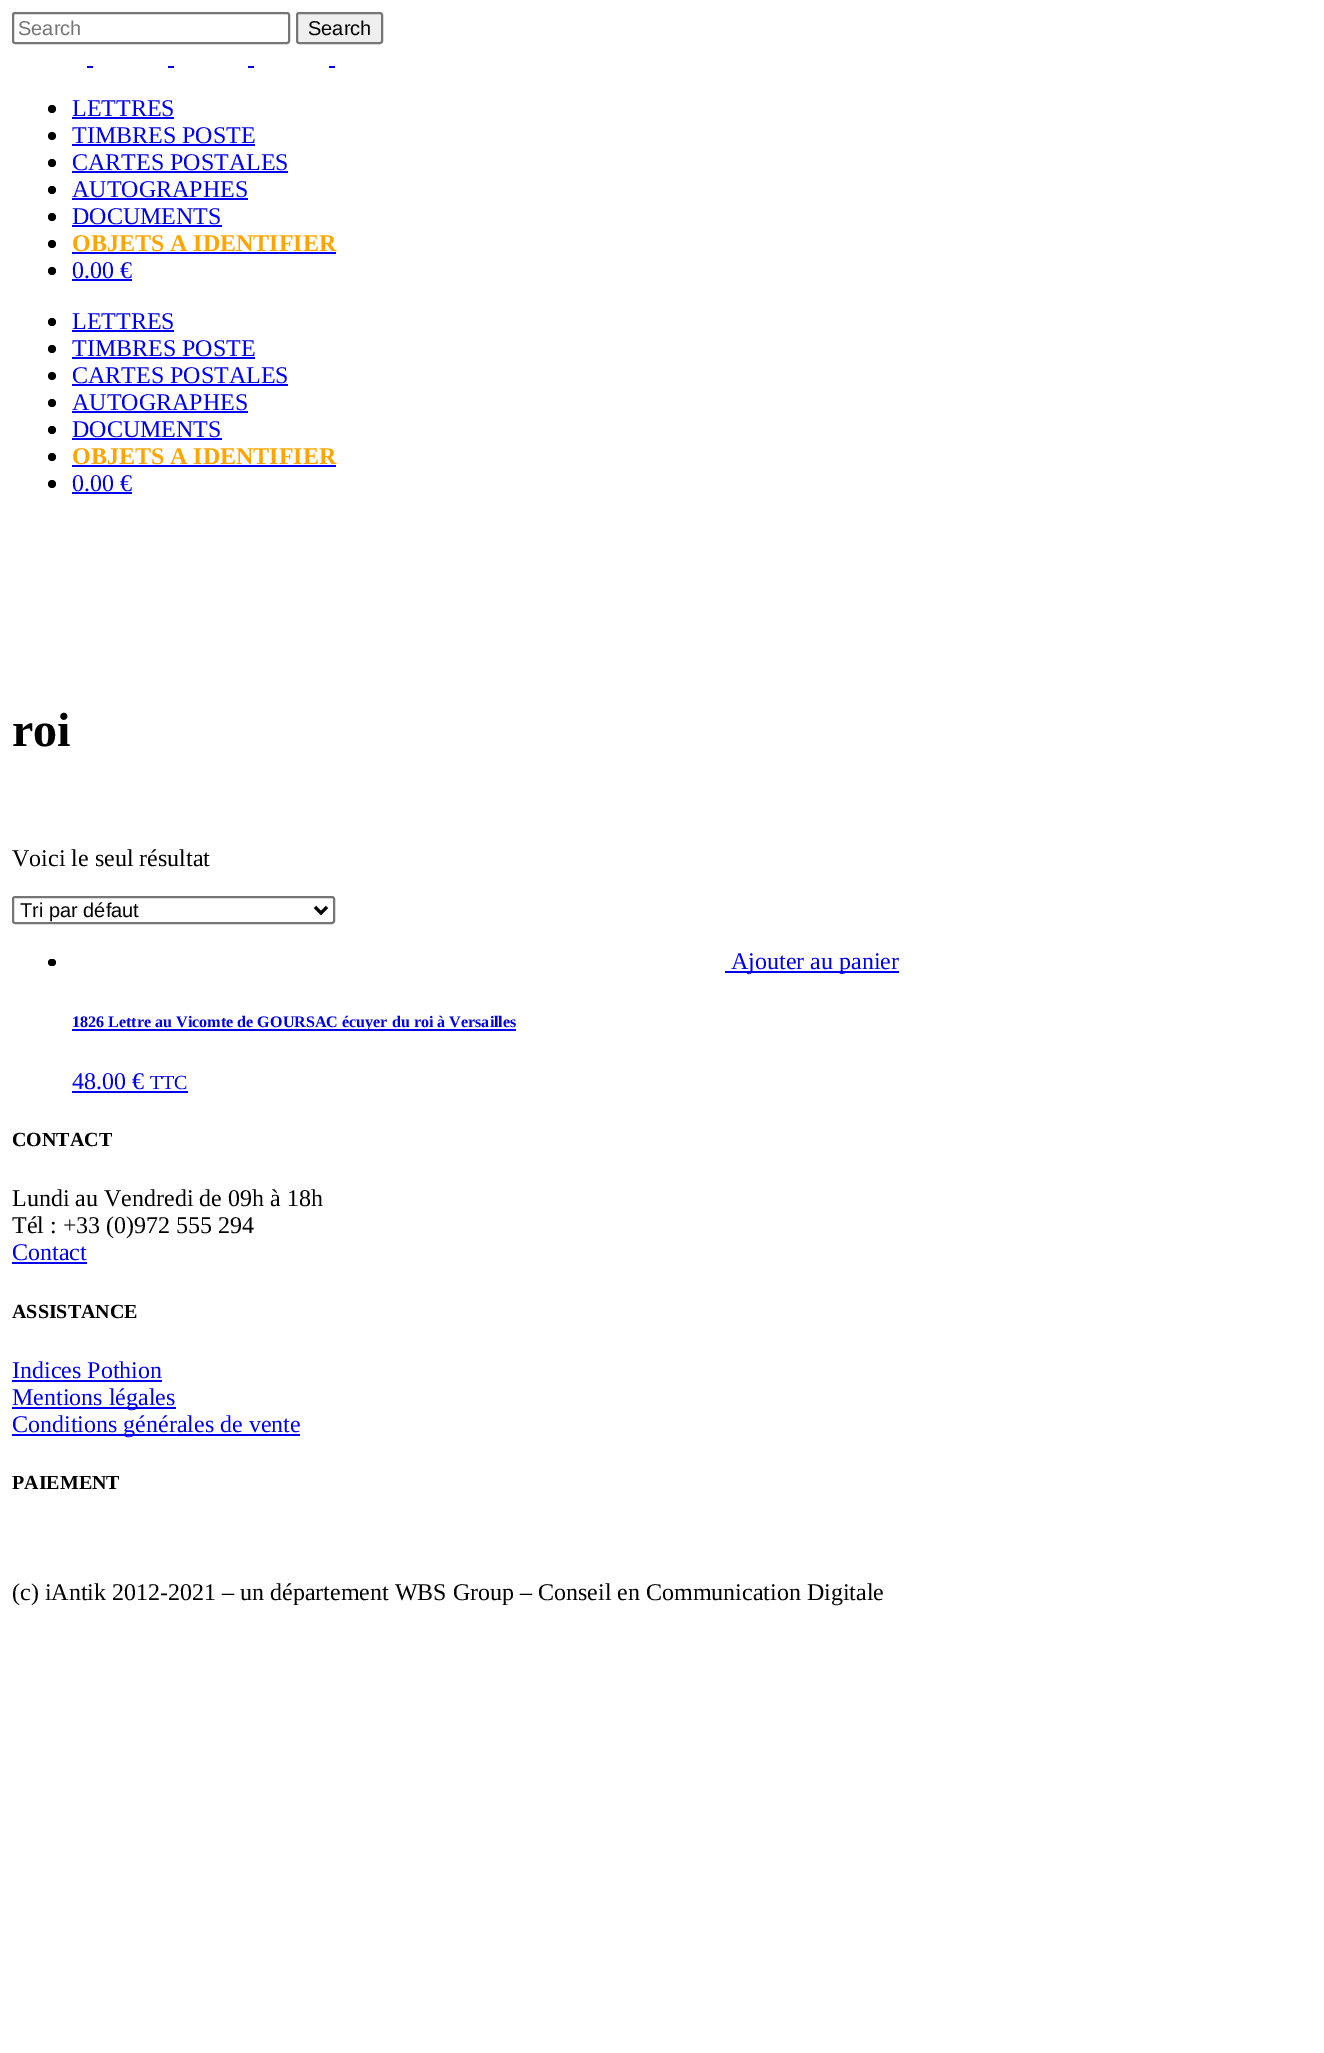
%!PS
<< /PageSize [1324 2053] >> setpagedevice
/rgb { dup -16 bitshift 255 div exch dup -8 bitshift 255 and 255 div exch 255 and 255 div setrgbcolor } def
/font { [ exch dup neg 0 0 3 -1 roll 0 0 ] selectfont } def
/text { moveto show } def
/circle { newpath 0 360 arc closepath } def
/roundrect { 5 dict begin { /r /h /w /y /x } { exch def } forall
  x r add y moveto x w add y 2 copy h add r arct x w add y h add x 1 index r arct
  x y h add x y r arct x y 2 copy exch w add exch r arct closepath end } def
0 2053 translate 1 -1 scale
4 setmiterlimit
/s1 { /LiberationSans-Regular 20 font 16#757575 rgb } def
/s2 { /LiberationSans-Regular 20 font 16#000000 rgb } def
/s3 { /LiberationSerif-Regular 24 font 16#0000EE rgb } def
/s4 { /LiberationSerif-Bold 24 font 16#FFA500 rgb } def
/s5 { /LiberationSerif-Bold 48 font 16#000000 rgb } def
/s6 { /LiberationSerif-Regular 24 font 16#000000 rgb } def
/s7 { /LiberationSerif-Bold 16.1 font 16#0000EE rgb } def
/s8 { /LiberationSerif-Regular 20 font 16#0000EE rgb } def
/s9 { /LiberationSerif-Bold 20 font 16#000000 rgb } def
16#FFFFFF rgb
0 0 1324 2053 rectfill
16#767676 rgb
2 setlinewidth
13 13 276 30 2 roundrect stroke
s1
(Search) 18 35 text
16#EFEFEF rgb
297 13 85 30 2 roundrect gsave fill grestore
16#767676 rgb
stroke
s2
(Search) 308 35 text
16#0000EE rgb
87 66 6 2 rectfill
168 66 6 2 rectfill
248 66 6 2 rectfill
329 66 6 2 rectfill
16#000000 rgb
52 109 4 circle fill
s3
(LETTRES) 72 116 text
72 117 102 2 rectfill
16#000000 rgb
52 136 4 circle fill
s3
(TIMBRES POSTE) 72 143 text
72 144 183 2 rectfill
16#000000 rgb
52 163 4 circle fill
s3
(CARTES POSTALES) 72 170 text
72 171 216 2 rectfill
16#000000 rgb
52 190 4 circle fill
s3
(AUTOGRAPHES) 72 197 text
72 198 176 2 rectfill
16#000000 rgb
52 217 4 circle fill
s3
(DOCUMENTS) 72 224 text
72 225 150 2 rectfill
16#000000 rgb
52 244 4 circle fill
s4
(OBJETS A IDENTIFIER) 72 251 text
16#0000EE rgb
72 252 264 2 rectfill
16#000000 rgb
52 271 4 circle fill
s3
(0.00 €) 72 278 text
72 279 60 2 rectfill
16#000000 rgb
52 322 4 circle fill
s3
(LETTRES) 72 329 text
72 330 102 2 rectfill
16#000000 rgb
52 349 4 circle fill
s3
(TIMBRES POSTE) 72 356 text
72 357 183 2 rectfill
16#000000 rgb
52 376 4 circle fill
s3
(CARTES POSTALES) 72 383 text
72 384 216 2 rectfill
16#000000 rgb
52 403 4 circle fill
s3
(AUTOGRAPHES) 72 410 text
72 411 176 2 rectfill
16#000000 rgb
52 430 4 circle fill
s3
(DOCUMENTS) 72 437 text
72 438 150 2 rectfill
16#000000 rgb
52 457 4 circle fill
s4
(OBJETS A IDENTIFIER) 72 464 text
16#0000EE rgb
72 465 264 2 rectfill
16#000000 rgb
52 484 4 circle fill
s3
(0.00 €) 72 491 text
72 492 60 2 rectfill
s5
(roi) 12 746 text
s6
(Voici le seul résultat) 12 866 text
16#767676 rgb
13 897 321 26 2 roundrect stroke
16#000000 rgb
3 setlinewidth
315 907 moveto 321 913 lineto 327 907 lineto stroke
s2
(Tri par défaut) 20 917 text
48 959 8 7 3.5 roundrect fill
16#0000EE rgb
725 971 174 2 rectfill
s3
(Ajouter au panier) 731 969 text
72 1029 444 2 rectfill
s7
(1826 Lettre au Vicomte de GOURSAC écuyer du roi à Versailles) 72 1027 text
s3
(48.00 €) 72 1089 text
s8
(TTC) 150 1089 text
72 1091 116 2 rectfill
s9
(CONTACT) 12 1146 text
s6
(Lundi au Vendredi de 09h à 18h) 12 1206 text
(Tél : +33 \(0\)972 555 294) 12 1233 text
s3
(Contact) 12 1260 text
12 1262 75 2 rectfill
s9
(ASSISTANCE) 12 1318 text
s3
(Indices Pothion) 12 1378 text
12 1380 150 2 rectfill
12 1407 164 2 rectfill
(Mentions légales) 12 1405 text
12 1434 288 2 rectfill
(Conditions générales de vente) 12 1432 text
s9
(PAIEMENT) 12 1489 text
s6
(\(c\) iAntik 2012-2021 – un département WBS Group – Conseil en Communication Digitale) 12 1600 text
showpage
